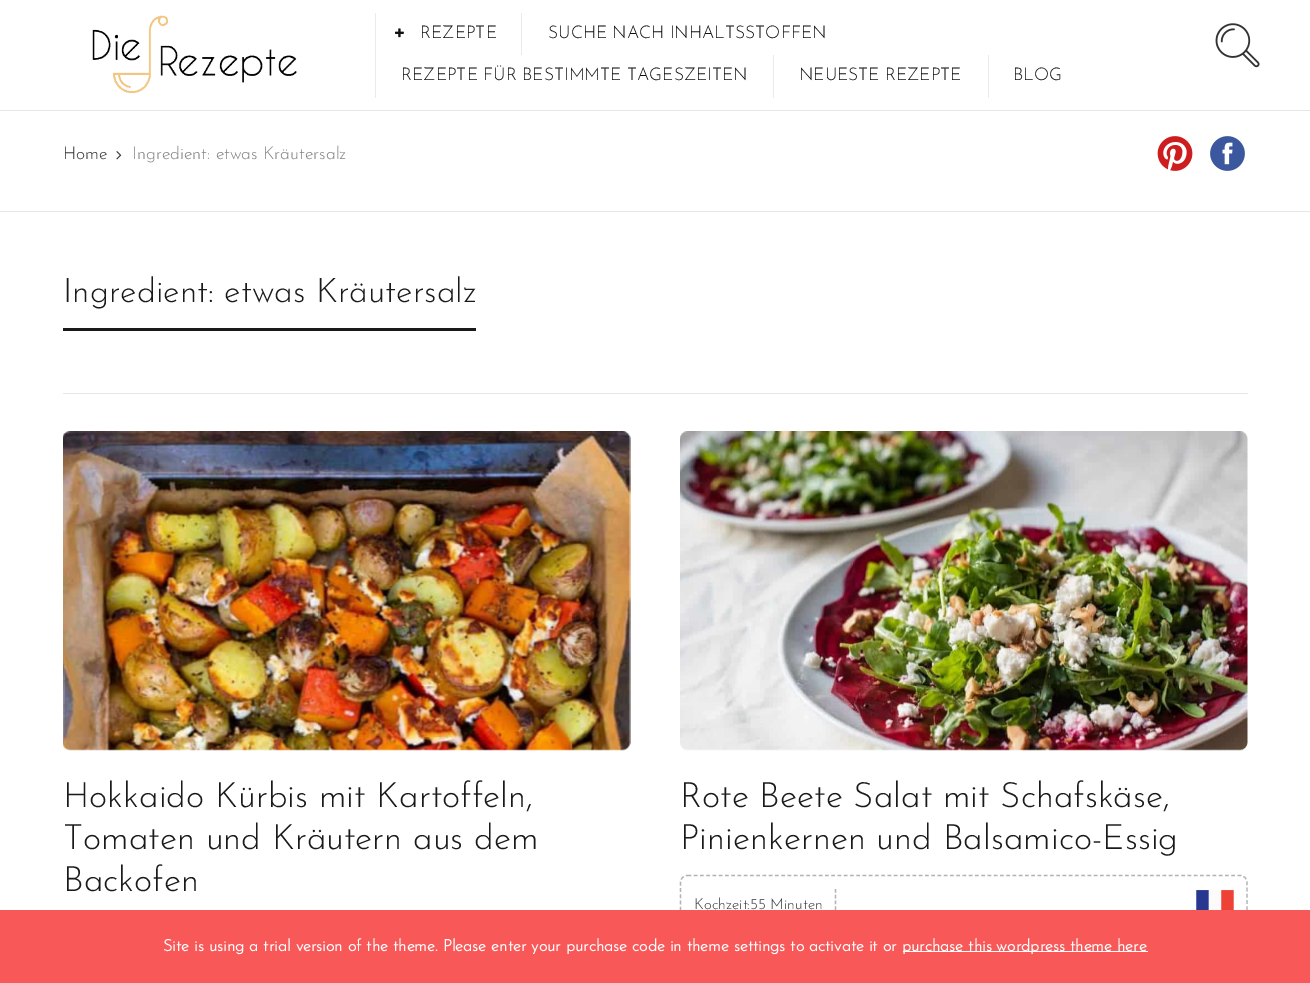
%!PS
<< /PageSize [1310 983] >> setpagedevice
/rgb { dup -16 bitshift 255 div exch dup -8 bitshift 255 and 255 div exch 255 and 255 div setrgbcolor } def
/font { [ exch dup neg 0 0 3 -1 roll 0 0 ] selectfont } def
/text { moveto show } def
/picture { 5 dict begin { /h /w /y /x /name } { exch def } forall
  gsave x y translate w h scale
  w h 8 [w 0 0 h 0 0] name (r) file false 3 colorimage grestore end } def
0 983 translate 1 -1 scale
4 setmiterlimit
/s1 { /JosefinSans-Thin 17.5 font 16#111111 rgb } def
/s2 { /JosefinSans-Thin 17.5 font 16#333333 rgb } def
/s3 { /JosefinSans-Thin 17.5 font 16#808080 rgb } def
/s4 { /JosefinSans-Thin 33.75 font 16#1A1A1A rgb } def
/s5 { /JosefinSans-Thin 35 font 16#1A1A1A rgb } def
/s6 { /JosefinSans-Thin 15 font 16#333333 rgb } def
/s7 { /JosefinSans-Bold 16.25 font 16#FFFFFF rgb } def
16#FFFFFF rgb
0 0 1310 983 rectfill
(pic1.raw) 92 15 205 78 picture
16#EBEBEB rgb
375 13 1 85 rectfill
(pic2.raw) 395 28 9 10 picture
s1
(REZEPTE) 420 38 text
16#EBEBEB rgb
521 13 1 42 rectfill
s1
(SUCHE NACH INHALTSSTOFFEN) 548 38 text
(REZEPTE FÜR BESTIMMTE TAGESZEITEN) 401 80 text
16#EBEBEB rgb
773 55 1 43 rectfill
s1
(NEUESTE REZEPTE) 799 80 text
16#EBEBEB rgb
988 55 1 43 rectfill
s1
(BLOG) 1013 80 text
(pic3.raw) 1215 23 45 45 picture
16#E6E6E6 rgb
0 110 1310 1 rectfill
0 211 1310 1 rectfill
s2
(Home) 63 159 text
(pic4.raw) 116 151 6 9 picture
s3
(Ingredient: etwas Kräutersalz) 132 159 text
(pic5.raw) 1157 136 36 35 picture
(pic6.raw) 1210 136 35 35 picture
16#E6E6E6 rgb
63 393 1185 1 rectfill
16#1A1A1A rgb
63 328 413 3 rectfill
s4
(Ingredient: etwas Kräutersalz) 63 302 text
(pic7.raw) 63 431 568 320 picture
s5
(Hokkaido Kürbis mit Kartoffeln,) 63 807 text
(Tomaten und Kräutern aus dem) 63 849 text
(Backofen) 63 891 text
(pic8.raw) 680 431 568 320 picture
(Rote Beete Salat mit Schafskäse,) 680 807 text
(Pinienkernen und Balsamico-Essig) 680 849 text
16#B3B3B3 rgb
1.2 setlinewidth
[3.75 2.5] 0 setdash
687.5 875.5 moveto 1240 875.5 lineto 1244 875.5 1247 878.5 1247 882.5 curveto 1247 927.5 lineto 1247 931.5 1244 934.5 1240 934.5 curveto 687.5 934.5 lineto 683.5 934.5 680.5 931.5 680.5 927.5 curveto 680.5 882.5 lineto 680.5 878.5 683.5 875.5 687.5 875.5 curveto closepath stroke
[3.75 2] 0 setdash
835.5 889 moveto 835.5 921 lineto stroke
s6
(Kochzeit:55 Minuten) 694 909 text
(pic9.raw) 1196 890 38 20 picture
16#F95858 rgb
0 910 1310 73 rectfill
s7
(Site is using a trial version of the theme. Please enter your purchase code in theme settings to activate it or) 163 951 text
903 951 245 1 rectfill
(purchase this wordpress theme here) 902 951 text
showpage
